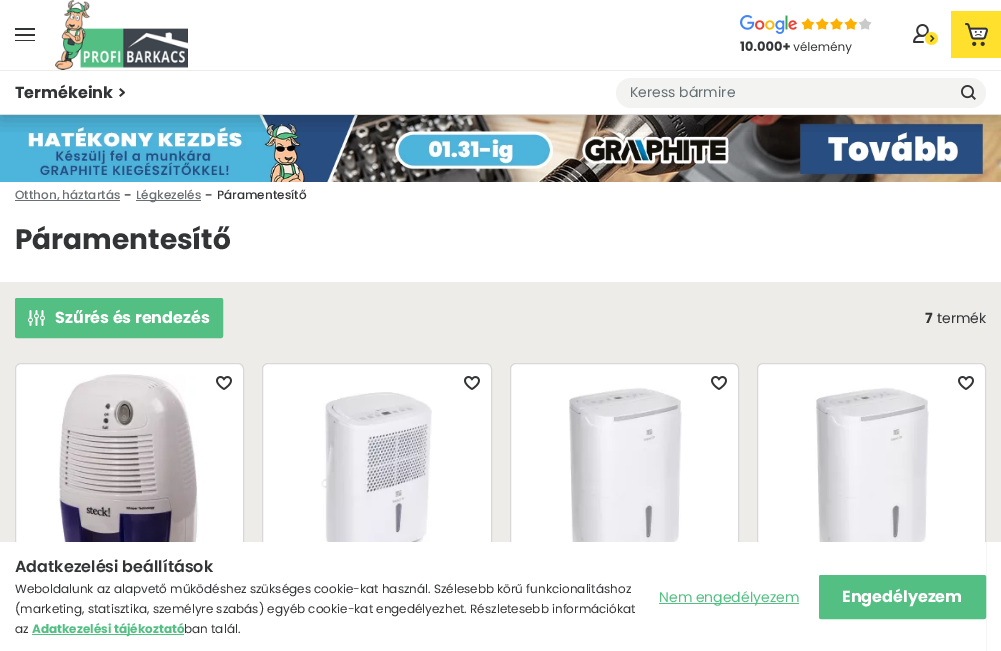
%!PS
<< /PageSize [1001 651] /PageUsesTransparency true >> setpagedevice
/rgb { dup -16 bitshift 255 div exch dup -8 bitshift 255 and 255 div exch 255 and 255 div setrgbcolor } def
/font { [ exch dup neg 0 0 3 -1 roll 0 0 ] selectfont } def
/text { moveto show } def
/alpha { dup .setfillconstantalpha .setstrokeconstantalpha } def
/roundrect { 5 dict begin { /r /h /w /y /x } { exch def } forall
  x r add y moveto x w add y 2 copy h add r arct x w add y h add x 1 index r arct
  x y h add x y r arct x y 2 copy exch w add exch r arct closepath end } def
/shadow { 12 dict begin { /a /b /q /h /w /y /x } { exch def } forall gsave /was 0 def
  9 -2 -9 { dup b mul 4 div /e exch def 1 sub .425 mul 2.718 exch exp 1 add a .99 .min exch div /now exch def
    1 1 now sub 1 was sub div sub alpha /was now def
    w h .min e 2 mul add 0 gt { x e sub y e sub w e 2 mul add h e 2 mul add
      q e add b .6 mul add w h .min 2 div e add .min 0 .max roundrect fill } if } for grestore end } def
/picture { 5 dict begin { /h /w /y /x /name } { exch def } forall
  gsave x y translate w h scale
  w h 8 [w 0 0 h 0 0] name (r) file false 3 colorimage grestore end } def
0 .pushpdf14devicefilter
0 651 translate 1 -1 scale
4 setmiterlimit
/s1 { /Poppins-Bold 16 font 16#323436 rgb } def
/s2 { /Poppins-Regular 14 font 16#646F73 rgb } def
/s3 { /Poppins-Medium 12 font 16#6A6F73 rgb } def
/s4 { /Poppins-Regular 14 font 16#323436 rgb } def
/s5 { /Poppins-Medium 12 font 16#323436 rgb } def
/s6 { /Poppins-Bold 28 font 16#323436 rgb } def
/s7 { /Poppins-Bold 16 font 16#FFFFFF rgb } def
/s8 { /Poppins-Bold 14 font 16#323436 rgb } def
/s9 { /Poppins-SemiBold 16 font 16#323436 rgb } def
/s10 { /Poppins-Regular 12 font 16#323436 rgb } def
/s11 { /Poppins-Bold 12 font 16#54BF83 rgb } def
/s12 { /Poppins-Regular 14 font 16#54BF83 rgb } def
16#FFFFFF rgb
0 0 1001 651 rectfill
(pic7.raw) 0 115 1001 67 picture
gsave
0 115 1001 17 rectclip
16#000000 rgb
0 5 1001 115 0 9.5 0.2 shadow
grestore
16#DFDDD9 rgb
0 114 1001 1 rectfill
16#323436 rgb
15 28 20 2 rectfill
15 34 20 2 rectfill
15 40 20 1 rectfill
(pic1.raw) 55 0 133 70 picture
(pic2.raw) 740 15 132 39 picture
(pic3.raw) 913 24 25 21 picture
16#FFE02D rgb
951 11 50 47 rectfill
(pic4.raw) 965 23 23 23 picture
16#EEECE9 rgb
0 70 1001 1 rectfill
s1
(Termékeink) 15 98 text
(pic5.raw) 119 88 6 9 picture
16#F3F3F2 rgb
616 78 370 30 15 roundrect fill
s2
(Keress bármire) 630 97 text
(pic6.raw) 961 85 15 15 picture
16#6A6F73 rgb
15 200 105 1 rectfill
s3
(Otthon, háztartás) 15 199 text
s4
(-) 124 200 text
16#6A6F73 rgb
136 200 65 1 rectfill
s3
(Légkezelés) 136 199 text
s4
(-) 205 200 text
s5
(Páramentesítő) 217 199 text
s6
(Páramentesítő) 15 249 text
16#EEECE9 rgb
0 282 1001 260 rectfill
16#54BF83 rgb
15.5 298.5 207 39 1.5 roundrect gsave fill grestore
stroke
(pic8.raw) 28 310 17 16 picture
s7
(Szűrés és rendezés) 55 323 text
s8
(7) 925 323 text
s4
(termék) 937 323 text
16#FFFFFF rgb
15.5 363.5 228 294 5.5 roundrect gsave fill grestore
16#D8D8D8 rgb
stroke
(pic9.raw) 59 374 140 168 picture
(pic10.raw) 216 376 16 14 picture
16#FFFFFF rgb
262.5 363.5 229 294 5.5 roundrect gsave fill grestore
16#D8D8D8 rgb
stroke
(pic10.raw) 464 376 16 14 picture
(pic11.raw) 321 392 111 150 picture
16#FFFFFF rgb
510.5 363.5 228 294 5.5 roundrect gsave fill grestore
16#D8D8D8 rgb
stroke
(pic10.raw) 711 376 16 14 picture
(pic12.raw) 569 387 113 155 picture
16#FFFFFF rgb
757.5 363.5 228 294 5.5 roundrect gsave fill grestore
16#D8D8D8 rgb
stroke
(pic10.raw) 958 376 16 14 picture
(pic13.raw) 815 387 114 155 picture
16#FFFFFF rgb
15 542 971 109 rectfill
s9
(Adatkezelési beállítások) 15 572 text
s10
(Weboldalunk az alapvető működéshez szükséges cookie-kat használ. Szélesebb körű funkcionalitáshoz) 15 593 text
(\(marketing, statisztika, személyre szabás\) egyéb cookie-kat engedélyezhet. Részletesebb információkat) 15 613 text
(az) 15 633 text
16#54BF83 rgb
32 634 152 1 rectfill
s11
(Adatkezelési tájékoztató) 32 633 text
s10
(ban talál.) 184 633 text
16#54BF83 rgb
659 603 140 1 rectfill
s12
(Nem engedélyezem) 659 602 text
819.5 575.5 166 43 1.5 roundrect gsave fill grestore
stroke
s7
(Engedélyezem) 842 602 text
.poppdf14devicefilter showpage
